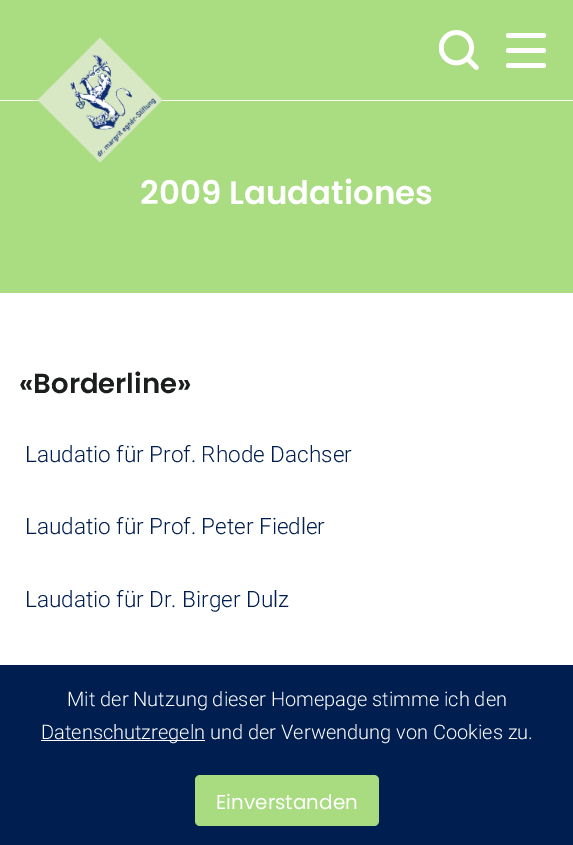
%!PS
<< /PageSize [573 845] >> setpagedevice
/rgb { dup -16 bitshift 255 div exch dup -8 bitshift 255 and 255 div exch 255 and 255 div setrgbcolor } def
/font { [ exch dup neg 0 0 3 -1 roll 0 0 ] selectfont } def
/text { moveto show } def
/roundrect { 5 dict begin { /r /h /w /y /x } { exch def } forall
  x r add y moveto x w add y 2 copy h add r arct x w add y h add x 1 index r arct
  x y h add x y r arct x y 2 copy exch w add exch r arct closepath end } def
/picture { 5 dict begin { /h /w /y /x /name } { exch def } forall
  gsave x y translate w h scale
  w h 8 [w 0 0 h 0 0] name (r) file false 3 colorimage grestore end } def
0 845 translate 1 -1 scale
4 setmiterlimit
/s1 { /Poppins-SemiBold 32.5 font 16#FFFFFF rgb } def
/s2 { /Poppins-SemiBold 27.5 font 16#1C1E1E rgb } def
/s3 { /Roboto-Light 22.5 font 16#001E50 rgb } def
/s4 { /Roboto-Light 20 font 16#FFFFFF rgb } def
/s5 { /Poppins-Regular 20 font 16#FFFFFF rgb } def
16#FFFFFF rgb
0 0 573 845 rectfill
16#AADC82 rgb
0 0 573 100 rectfill
16#FAF8F3 rgb
0 100 573 1 rectfill
16#AADC82 rgb
0 101 573 192 rectfill
(pic1.raw) 37 37 126 126 picture
(pic2.raw) 439 30 40 40 picture
16#FFFFFF rgb
506 48 40 5 2.5 roundrect fill
506 33 40 5 2.5 roundrect fill
506 63 40 5 2.5 roundrect fill
s1
(2009 Laudationes) 140 204 text
s2
(«Borderline») 19 393 text
s3
(Laudatio für Prof. Rhode Dachser) 25 462 text
(Laudatio für Prof. Peter Fiedler) 25 534 text
(Laudatio für Dr. Birger Dulz) 25 607 text
0 665 573 180 rectfill
s4
(Mit der Nutzung dieser Homepage stimme ich den) 67 706 text
16#FEFFFE rgb
41 740 164 1 rectfill
s4
(Datenschutzregeln und der Verwendung von Cookies zu.) 41 739 text
16#A9DC81 rgb
195 775 184 51 5 roundrect fill
s5
(Einverstanden) 216 809 text
showpage
